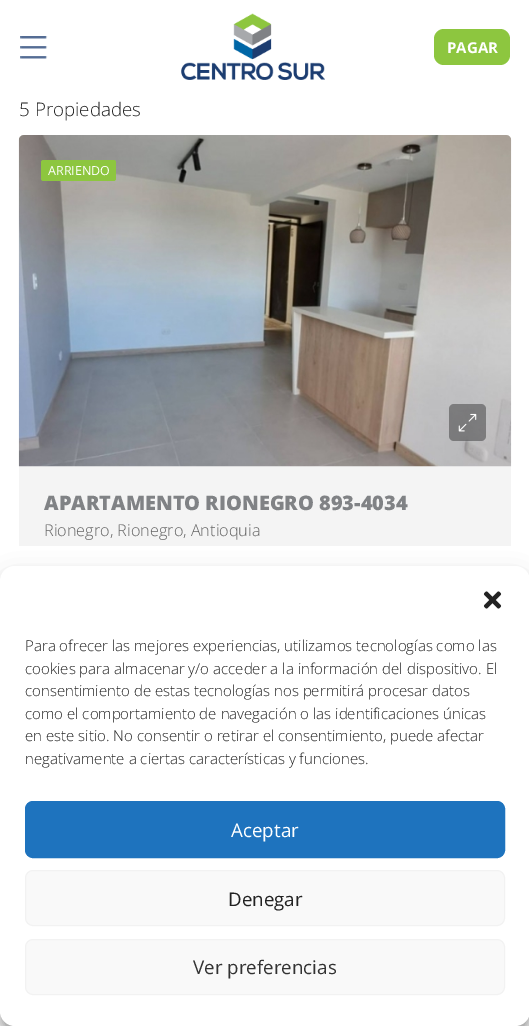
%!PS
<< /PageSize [529 1026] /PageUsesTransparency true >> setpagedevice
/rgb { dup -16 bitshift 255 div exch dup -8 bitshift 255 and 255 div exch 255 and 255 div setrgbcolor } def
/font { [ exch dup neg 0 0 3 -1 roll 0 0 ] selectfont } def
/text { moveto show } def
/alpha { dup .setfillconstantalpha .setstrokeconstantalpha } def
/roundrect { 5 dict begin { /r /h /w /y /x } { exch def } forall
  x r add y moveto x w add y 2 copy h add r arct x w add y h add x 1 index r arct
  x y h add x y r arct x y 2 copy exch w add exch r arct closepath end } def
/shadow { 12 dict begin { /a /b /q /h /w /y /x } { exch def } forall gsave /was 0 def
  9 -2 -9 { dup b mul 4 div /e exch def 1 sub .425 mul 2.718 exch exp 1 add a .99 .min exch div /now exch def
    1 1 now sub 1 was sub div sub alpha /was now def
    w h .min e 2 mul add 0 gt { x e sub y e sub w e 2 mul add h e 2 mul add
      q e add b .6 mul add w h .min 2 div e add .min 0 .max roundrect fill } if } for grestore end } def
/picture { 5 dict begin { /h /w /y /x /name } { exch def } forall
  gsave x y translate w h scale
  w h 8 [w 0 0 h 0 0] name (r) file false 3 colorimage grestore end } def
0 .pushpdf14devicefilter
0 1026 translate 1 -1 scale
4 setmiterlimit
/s1 { /OpenSans-Bold 15 font 16#FFFFFF rgb } def
/s2 { /OpenSans-Light 18.75 font 16#222222 rgb } def
/s3 { /OpenSans-Regular 12.5 font 16#FFFFFF rgb } def
/s4 { /OpenSans-ExtraBold 20 font 16#808285 rgb } def
/s5 { /OpenSans-Light 16.25 font 16#636363 rgb } def
/s6 { /OpenSans-Light 15 font 16#222222 rgb } def
/s7 { /OpenSans-Regular 18.75 font 16#FFFFFF rgb } def
/s8 { /OpenSans-Regular 18.75 font 16#222222 rgb } def
/s9 { /OpenSans-Regular 18.75 font 16#333333 rgb } def
16#FFFFFF rgb
0 0 529 1026 rectfill
(pic1.raw) 20 36 28 23 picture
(pic2.raw) 181 13 144 67 picture
16#8DC63F rgb
434 29 76 36 10 roundrect fill
s1
(PAGAR) 447 53 text
s2
(5 Propiedades) 19 116 text
16#F4F4F4 rgb
19 466 492 80 rectfill
(pic3.raw) 18 135 494 332 picture
16#8DC63F rgb
41 160 75 21 2.5 roundrect fill
s3
(ARRIENDO) 48 175 text
0.35 alpha
16#000000 rgb
449 404 37 37 5 roundrect fill
1 alpha
(pic4.raw) 458 413 19 19 picture
s4
(APARTAMENTO RIONEGRO 893-4034) 44 510 text
s5
(Rionegro, Rionegro, Antioquia) 44 536 text
16#000000 rgb
0 574 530 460 15 4 0.23 shadow
0 579 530 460 15 12.5 0.19 shadow
16#FFFFFF rgb
0 566 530 460 15 roundrect fill
(pic5.raw) 483 591 19 18 picture
s6
(Para ofrecer las mejores experiencias, utilizamos tecnologías como las) 25 651 text
(cookies para almacenar y/o acceder a la información del dispositivo. El) 25 674 text
(consentimiento de estas tecnologías nos permitirá procesar datos) 25 696 text
(como el comportamiento de navegación o las identificaciones únicas) 25 719 text
(en este sitio. No consentir o retirar el consentimiento, puede afectar) 25 741 text
(negativamente a ciertas características y funciones.) 25 764 text
16#1E73BE rgb
25.5 801.5 479 56 7.5 roundrect gsave fill grestore
stroke
s7
(Aceptar) 231 837 text
16#F9F9F9 rgb
25.5 870.5 479 55 7.5 roundrect gsave fill grestore
16#F2F2F2 rgb
stroke
s8
(Denegar) 228 906 text
16#F9F9F9 rgb
25.5 939.5 479 55 7.5 roundrect gsave fill grestore
16#F2F2F2 rgb
stroke
s9
(Ver preferencias) 193 974 text
.poppdf14devicefilter showpage
